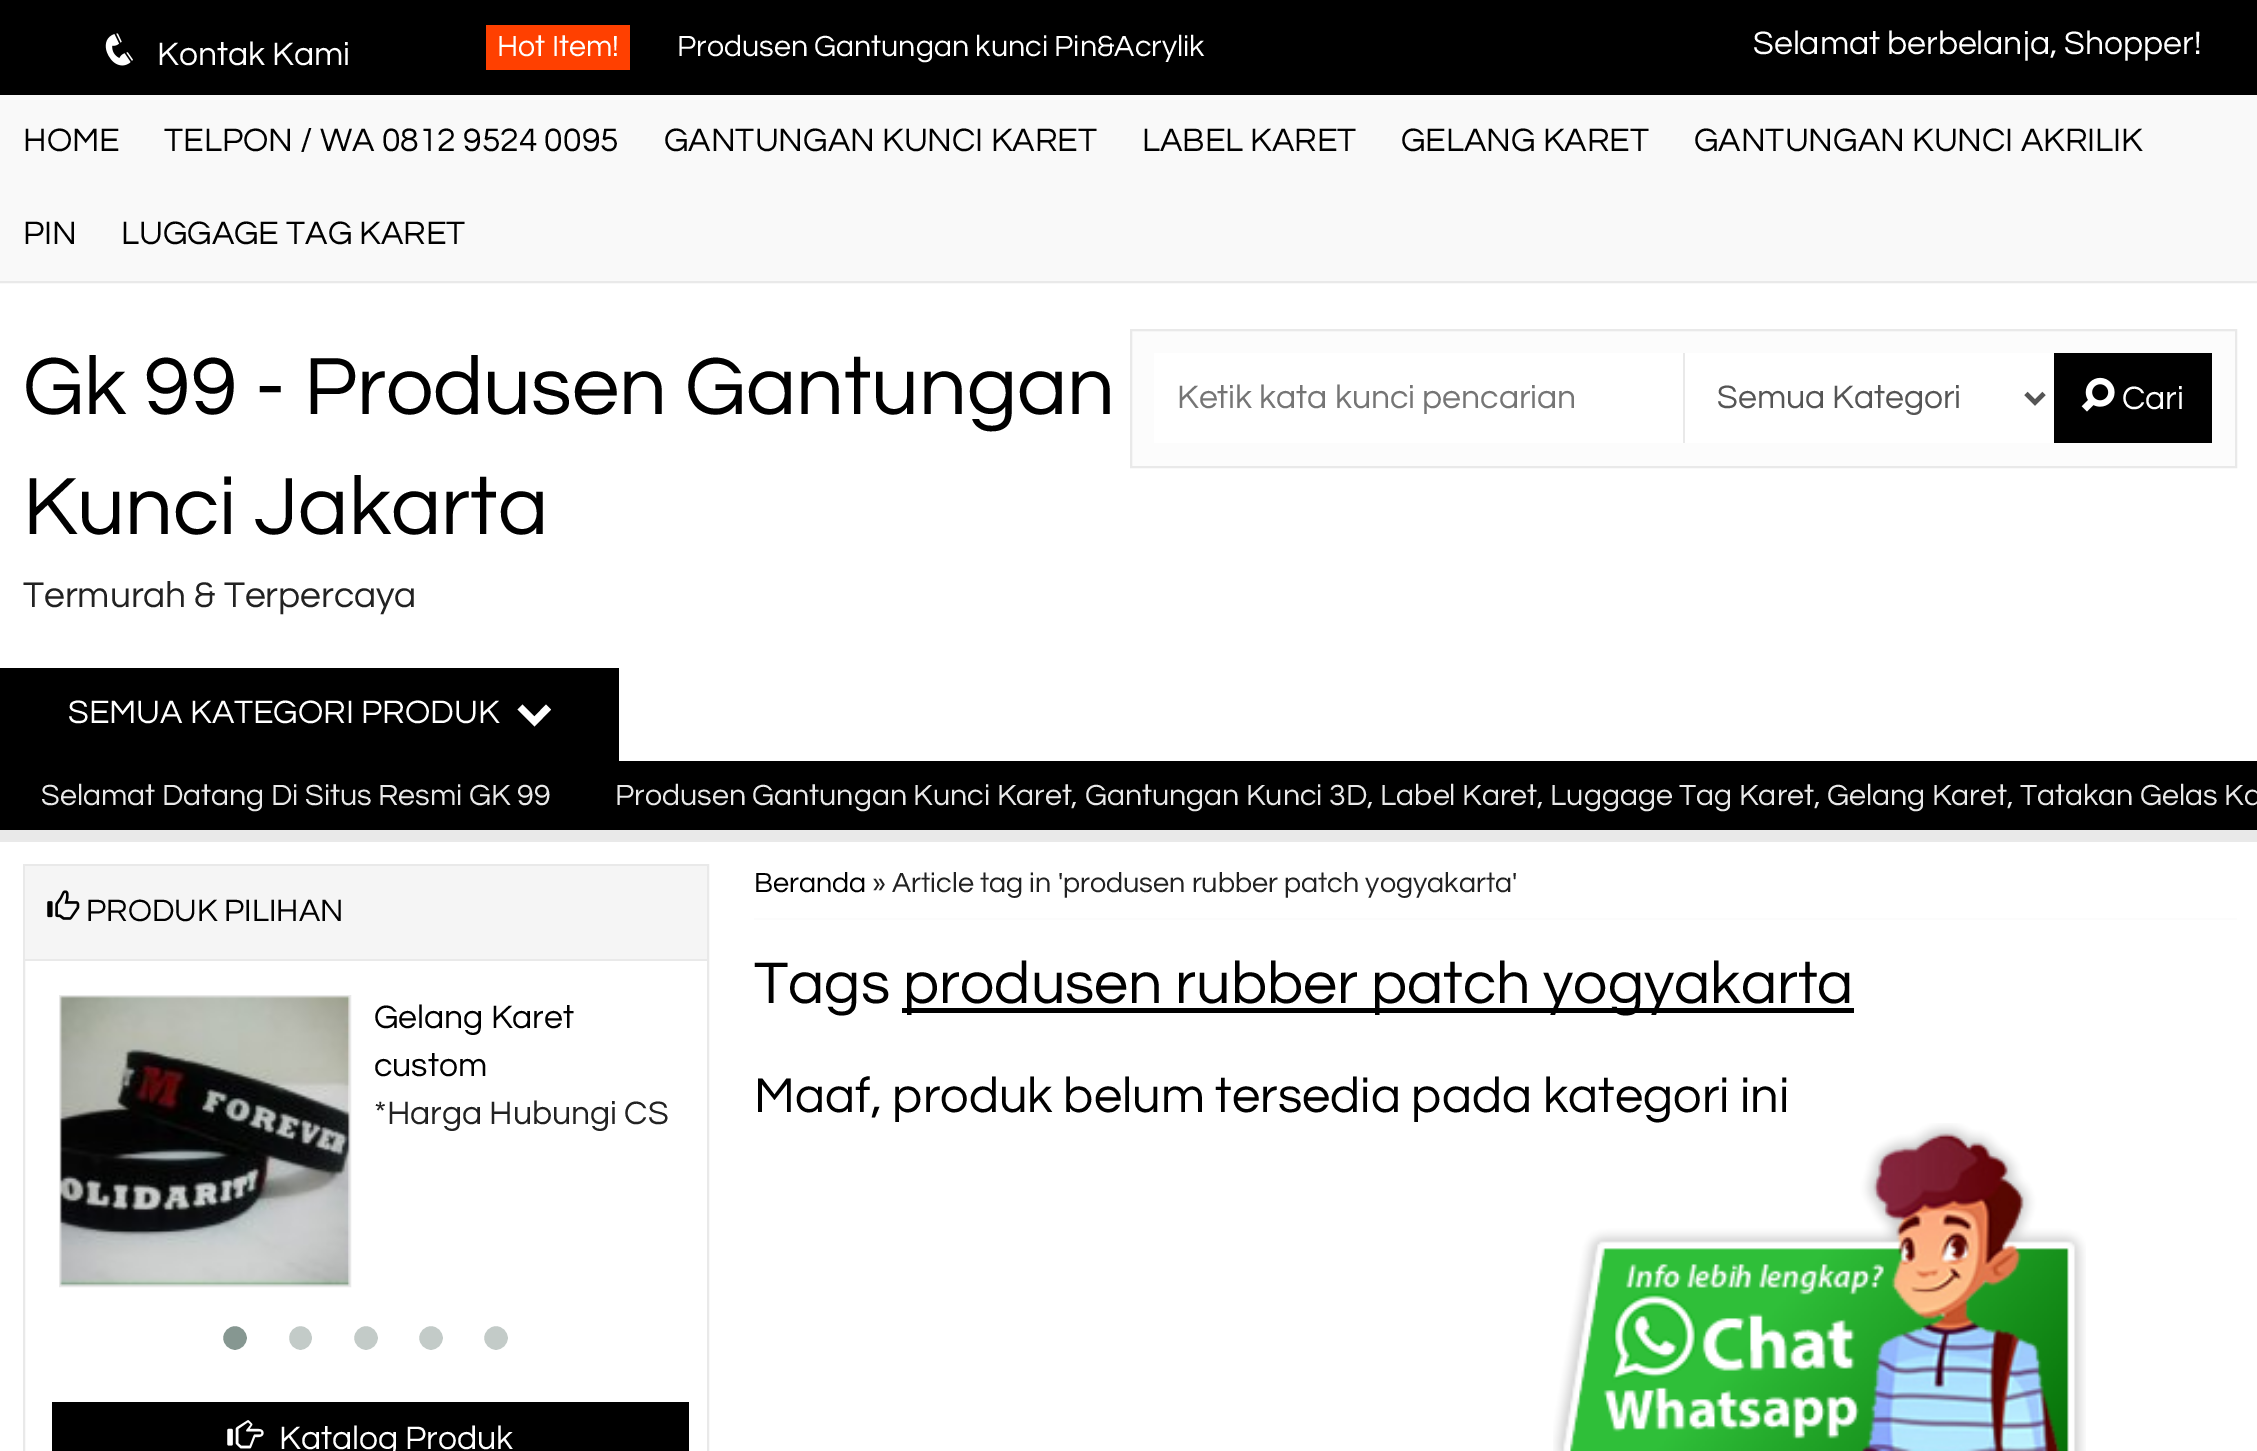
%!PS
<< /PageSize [2257 1451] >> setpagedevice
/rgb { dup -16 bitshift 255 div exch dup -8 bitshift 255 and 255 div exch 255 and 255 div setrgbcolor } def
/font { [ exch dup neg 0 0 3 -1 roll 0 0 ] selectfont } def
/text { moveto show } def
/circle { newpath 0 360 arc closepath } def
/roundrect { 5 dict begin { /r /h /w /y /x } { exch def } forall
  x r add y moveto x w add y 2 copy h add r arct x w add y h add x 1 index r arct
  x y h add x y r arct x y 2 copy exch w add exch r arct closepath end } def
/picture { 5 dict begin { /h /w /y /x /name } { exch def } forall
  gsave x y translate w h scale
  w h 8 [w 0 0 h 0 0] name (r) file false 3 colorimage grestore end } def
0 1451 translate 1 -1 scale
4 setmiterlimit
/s1 { /Questrial-Regular 33.75 font 16#FFFFFF rgb } def
/s2 { /Questrial-Regular 30.38 font 16#FFFFFF rgb } def
/s3 { /Questrial-Regular 33.75 font 16#000000 rgb } def
/s4 { /Questrial-Regular 84.4 font 16#000000 rgb } def
/s5 { /Questrial-Regular 37.1 font 16#222222 rgb } def
/s6 { /Questrial-Regular 33.75 font 16#757575 rgb } def
/s7 { /Questrial-Regular 33.75 font 16#555555 rgb } def
/s8 { /Questrial-Regular 30.38 font 16#E9E9E9 rgb } def
/s9 { /Questrial-Regular 32 font 16#000000 rgb } def
/s10 { /Questrial-Regular 33.75 font 16#222222 rgb } def
/s11 { /Questrial-Regular 28.7 font 16#000000 rgb } def
/s12 { /Questrial-Regular 28.7 font 16#222222 rgb } def
/s13 { /Questrial-Regular 60.75 font 16#000000 rgb } def
/s14 { /Questrial-Regular 50.6 font 16#000000 rgb } def
16#F9F9F9 rgb
0 0 2257 1451 rectfill
16#000000 rgb
0 0 2257 95 rectfill
(pic1.raw) 105 33 28 33 picture
s1
(Kontak Kami) 157 65 text
16#FF4000 rgb
486 25 144 45 rectfill
s2
(Hot Item!) 497 56 text
(Produsen Gantungan kunci Pin&Acrylik) 677 56 text
s1
(Selamat berbelanja, Shopper!) 1753 54 text
16#E9E9E9 rgb
0 281 2257 2 rectfill
s3
(HOME) 23 151 text
(TELPON / WA 0812 9524 0095) 164 151 text
(GANTUNGAN KUNCI KARET) 664 151 text
(LABEL KARET) 1142 151 text
(GELANG KARET) 1401 151 text
(GANTUNGAN KUNCI AKRILIK) 1694 151 text
(PIN) 23 244 text
(LUGGAGE TAG KARET) 121 244 text
16#FFFFFF rgb
0 284 2257 477 rectfill
s4
(Gk 99 - Produsen Gantungan) 23 414 text
(Kunci Jakarta) 23 534 text
s5
(Termurah & Terpercaya) 23 607 text
16#FCFCFC rgb
1131 330 moveto 2236 330 lineto 2236 467 lineto 1131 467 lineto closepath gsave fill grestore
16#E9E9E9 rgb
2 setlinewidth
stroke
16#FFFFFF rgb
1154 353 529 90 rectfill
gsave
1177 380 475 34 rectclip
s6
(Ketik kata kunci pencarian) 1177 408 text
grestore
1685 353 369 90 rectfill
16#E9E9E9 rgb
1683 353 2 90 rectfill
16#555555 rgb
4.5 setlinewidth
2026 393.5 moveto 2035 402.5 lineto 2044 393.5 lineto stroke
s7
(Semua Kategori) 1717 408 text
16#000000 rgb
2054 353 158 90 rectfill
(pic2.raw) 2081 377 34 35 picture
s1
(Cari) 2122 409 text
16#000000 rgb
0 668 619 93 rectfill
s1
(SEMUA KATEGORI PRODUK) 68 723 text
534.5 726.5 moveto 551 709.5 lineto 546 704.5 lineto 534.5 716.5 lineto 522.5 704.5 lineto 517.5 709.5 lineto closepath fill
16#000000 rgb
0 761 2257 69 rectfill
s8
(Selamat Datang Di Situs Resmi GK 99) 41 805 text
(Produsen Gantungan Kunci Karet, Gantungan Kunci 3D, Label Karet, Luggage Tag Karet, Gelang Karet, Tatakan Gelas Ka) 615 805 text
16#FFFFFF rgb
0 842 2257 609 rectfill
16#E9E9E9 rgb
0 830 2257 12 rectfill
2 setlinewidth
24 865 684 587 rectstroke
16#F5F5F5 rgb
25 866 682 93 rectfill
16#E9E9E9 rgb
25 959 682 2 rectfill
(pic3.raw) 47 890 33 30 picture
s9
(PRODUK PILIHAN) 86 921 text
16#E9E9E9 rgb
60 996 290 290 rectstroke
(pic4.raw) 60 996 290 290 picture
s3
(Gelang Karet) 374 1028 text
(custom) 374 1076 text
s10
(*Harga Hubungi CS) 374 1124 text
16#869791 rgb
235 1338 14.5 circle gsave fill grestore
16#FFFFFF rgb
5 setlinewidth
stroke
16#C3CBC8 rgb
286.5 1323.5 28 29 14 roundrect gsave fill grestore
16#FFFFFF rgb
stroke
16#C3CBC8 rgb
366 1338 14.5 circle gsave fill grestore
16#FFFFFF rgb
stroke
16#C3CBC8 rgb
431 1338 14.5 circle gsave fill grestore
16#FFFFFF rgb
stroke
16#C3CBC8 rgb
496 1338 14.5 circle gsave fill grestore
16#FFFFFF rgb
stroke
16#000000 rgb
52 1402 637 49 rectfill
(pic5.raw) 227 1420 37 29 picture
s1
(Katalog Produk) 279 1449 text
16#FCFCFC rgb
754 918 1483 2 rectfill
s11
(Beranda) 754 892 text
s12
(» Article tag in 'produsen rubber patch yogyakarta') 872 892 text
s13
(Tags) 754 1003 text
902 1008 952 5 rectfill
(produsen rubber patch yogyakarta) 903 1003 text
s14
(Maaf, produk belum tersedia pada kategori ini) 754 1112 text
(pic6.raw) 1553 1123 533 328 picture
showpage
